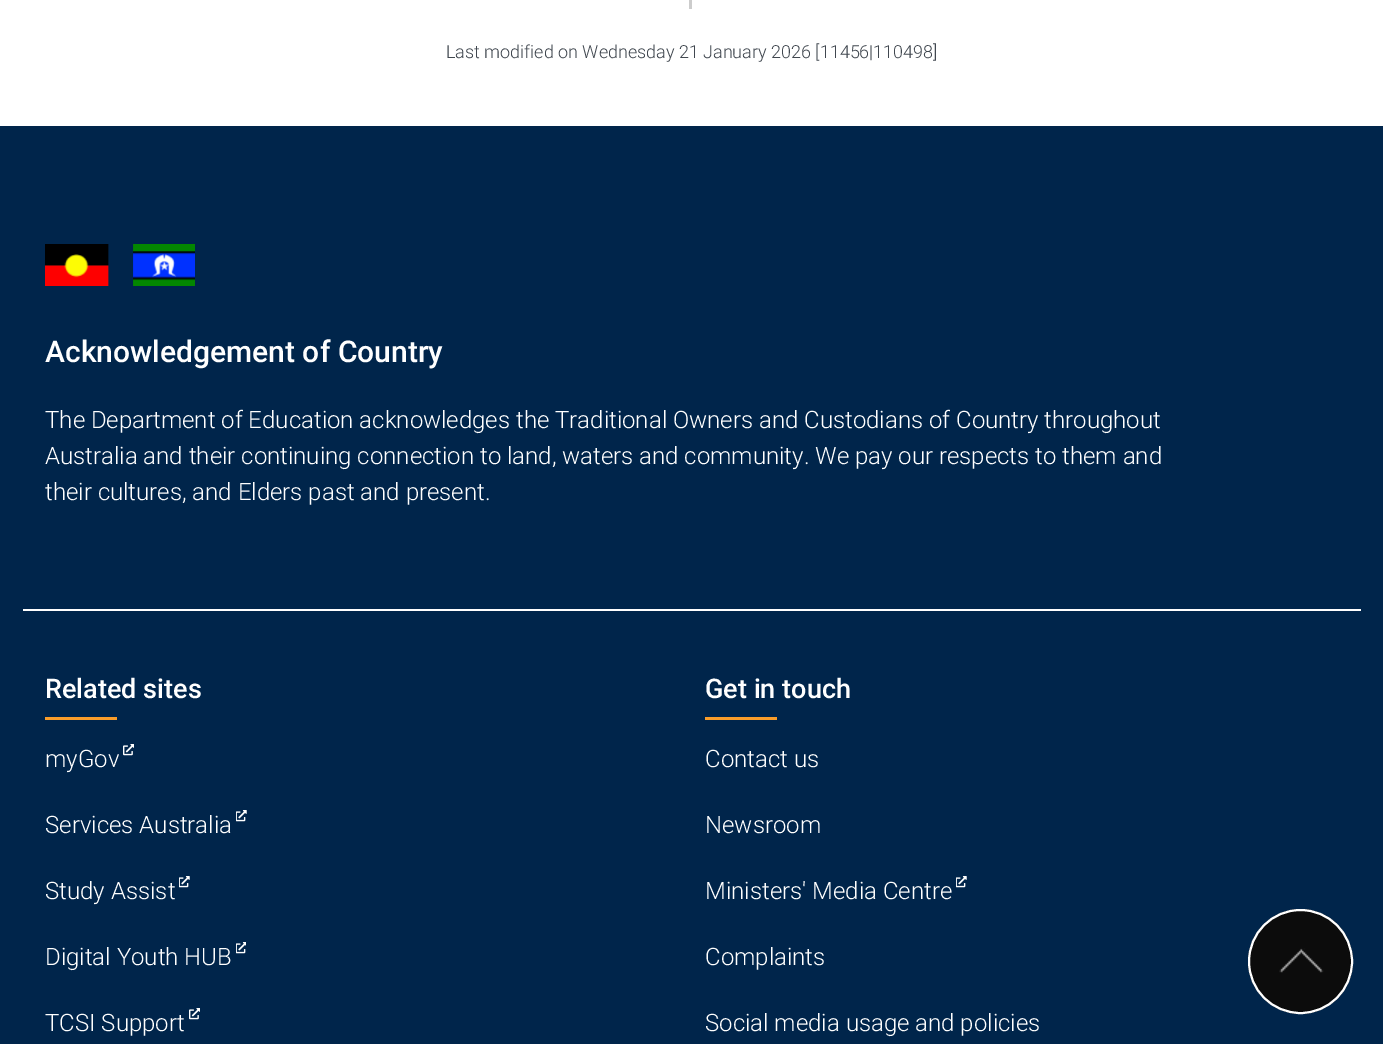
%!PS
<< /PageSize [1383 1044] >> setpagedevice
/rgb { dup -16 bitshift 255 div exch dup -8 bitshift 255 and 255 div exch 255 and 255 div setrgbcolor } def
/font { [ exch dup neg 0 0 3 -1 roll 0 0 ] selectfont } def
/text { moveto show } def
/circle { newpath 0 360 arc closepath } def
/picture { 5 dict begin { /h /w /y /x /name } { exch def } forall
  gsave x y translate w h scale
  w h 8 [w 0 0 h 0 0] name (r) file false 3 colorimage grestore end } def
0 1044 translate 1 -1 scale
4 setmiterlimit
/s1 { /Roboto-Light 18 font 16#40474F rgb } def
/s2 { /Roboto-Medium 30 font 16#FFFFFF rgb } def
/s3 { /Roboto-Light 24 font 16#FFFFFF rgb } def
/s4 { /Roboto-Medium 27 font 16#FFFFFF rgb } def
16#FFFFFF rgb
0 0 1383 1044 rectfill
16#CCCCCC rgb
689 0 3 9 rectfill
s1
(Last modified on Wednesday 21 January 2026 [11456|110498]) 446 58 text
16#00254B rgb
0 126 1383 918 rectfill
16#FFFFFF rgb
23 609 1338 2 rectfill
(pic1.raw) 45 244 150 42 picture
s2
(Acknowledgement of Country) 45 362 text
s3
(The Department of Education acknowledges the Traditional Owners and Custodians of Country throughout) 45 428 text
(Australia and their continuing connection to land, waters and community. We pay our respects to them and) 45 464 text
(their cultures, and Elders past and present.) 45 500 text
s4
(Related sites) 45 698 text
16#F99D2A rgb
45 717 72 3 rectfill
s3
(myGov) 45 767 text
(pic2.raw) 123 744 11 12 picture
(Services Australia) 45 833 text
(pic3.raw) 236 810 11 12 picture
(Study Assist) 45 899 text
(pic3.raw) 179 876 11 12 picture
(Digital Youth HUB) 45 965 text
(pic4.raw) 236 942 10 12 picture
(TCSI Support) 45 1031 text
(pic2.raw) 189 1008 11 12 picture
s4
(Get in touch) 705 698 text
16#F99D2A rgb
705 717 72 3 rectfill
s3
(Contact us) 705 767 text
(Newsroom) 705 833 text
(Ministers' Media Centre) 705 899 text
(pic3.raw) 956 876 11 12 picture
(Complaints) 705 965 text
(Social media usage and policies) 705 1031 text
16#000000 rgb
1300.5 961.5 52.5 circle fill
(pic5.raw) 1249 910 103 103 picture
16#FFFFFF rgb
2 setlinewidth
1300.5 961.5 51.5 circle stroke
showpage
